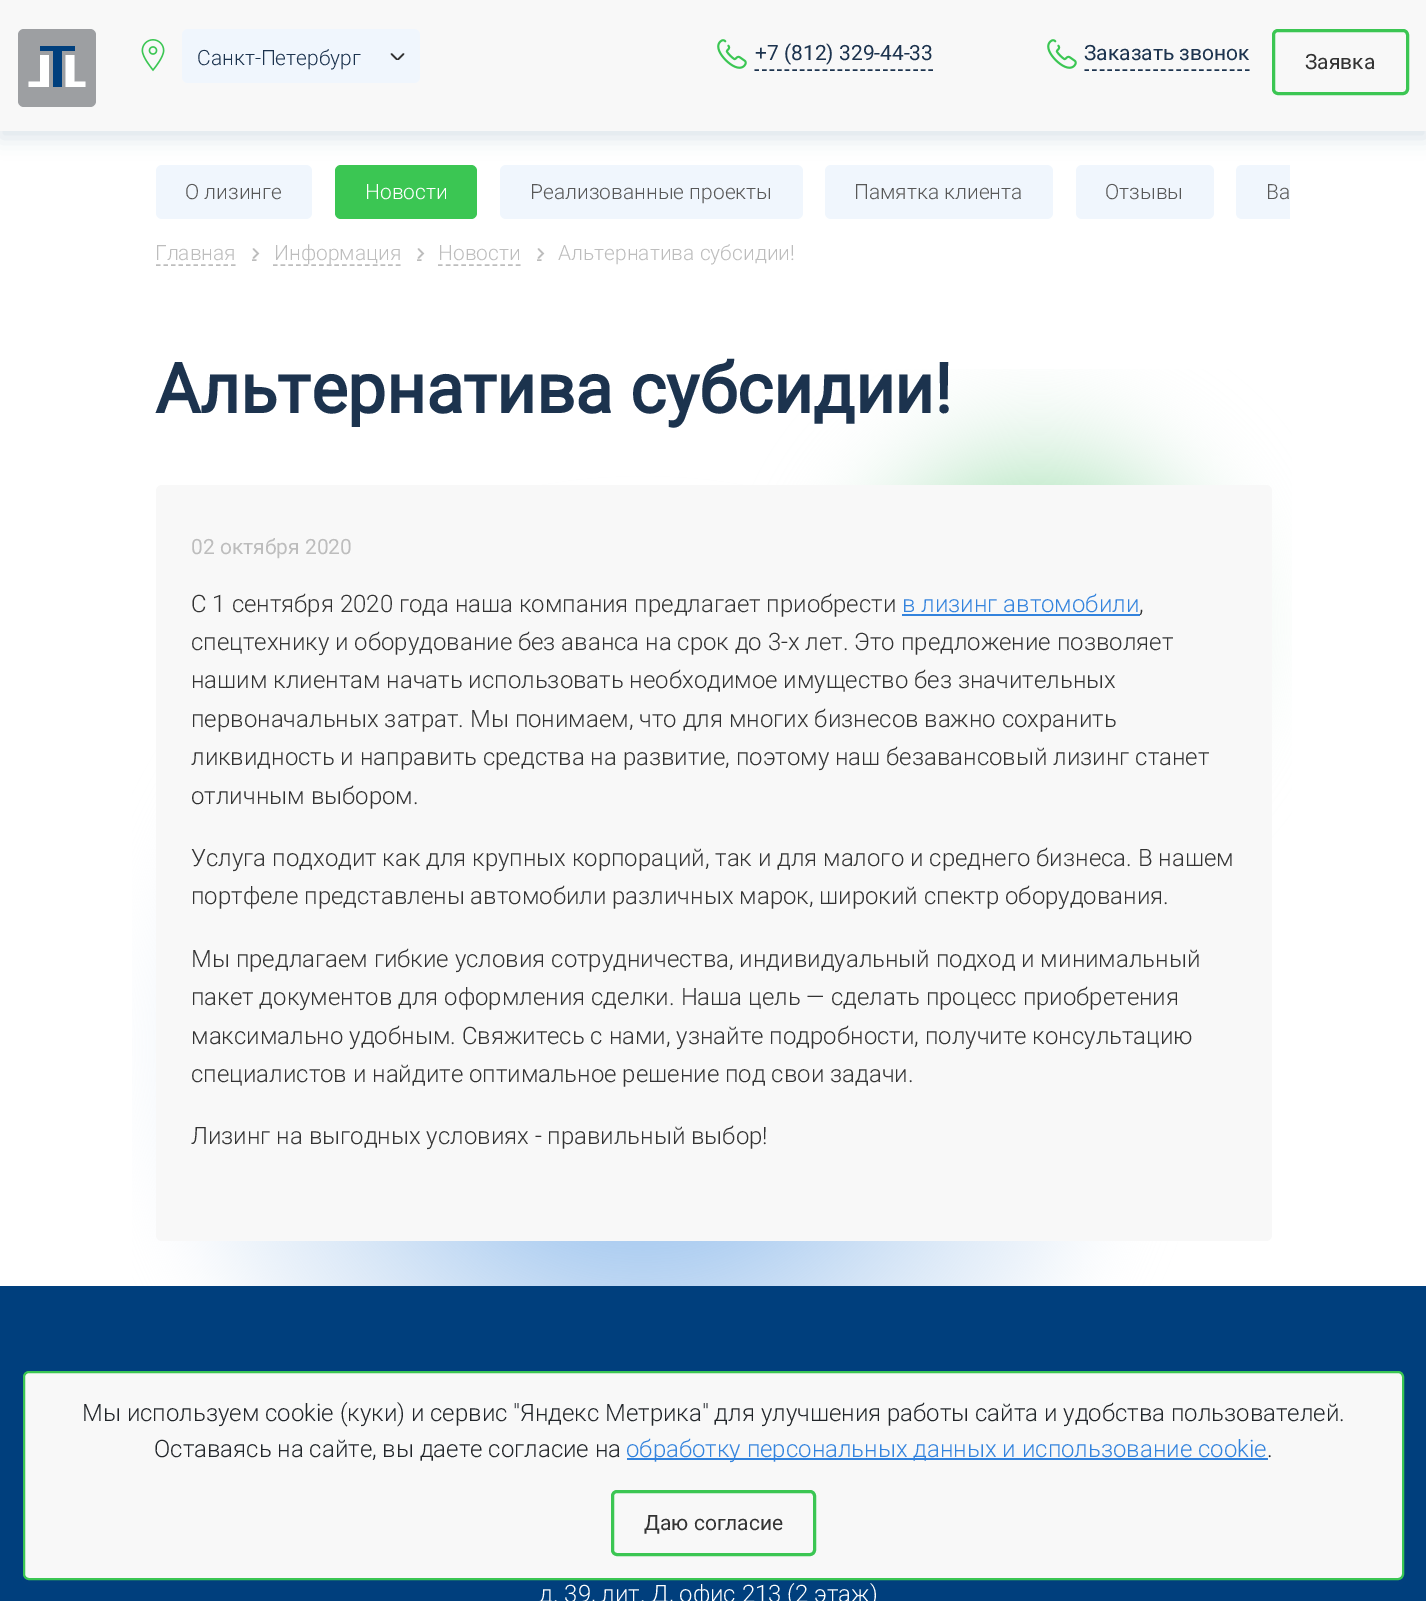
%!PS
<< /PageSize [1426 1601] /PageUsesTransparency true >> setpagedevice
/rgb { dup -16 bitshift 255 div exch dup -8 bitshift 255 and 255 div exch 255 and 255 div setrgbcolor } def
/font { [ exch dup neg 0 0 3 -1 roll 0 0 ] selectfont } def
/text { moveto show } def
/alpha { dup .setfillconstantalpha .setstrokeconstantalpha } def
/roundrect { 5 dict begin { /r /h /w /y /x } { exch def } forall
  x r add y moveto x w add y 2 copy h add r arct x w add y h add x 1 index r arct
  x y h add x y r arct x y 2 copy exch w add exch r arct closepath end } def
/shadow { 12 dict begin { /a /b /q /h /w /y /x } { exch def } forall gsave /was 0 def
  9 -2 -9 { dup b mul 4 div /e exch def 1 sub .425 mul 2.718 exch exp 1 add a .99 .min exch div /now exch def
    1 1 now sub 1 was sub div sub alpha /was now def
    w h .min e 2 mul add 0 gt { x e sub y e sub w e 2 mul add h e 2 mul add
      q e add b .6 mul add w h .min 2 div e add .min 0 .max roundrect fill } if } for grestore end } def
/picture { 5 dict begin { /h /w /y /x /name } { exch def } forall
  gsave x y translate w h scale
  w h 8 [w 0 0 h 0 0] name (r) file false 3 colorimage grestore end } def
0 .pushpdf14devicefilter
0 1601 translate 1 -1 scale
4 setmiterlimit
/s1 { /Roboto-Light 21 font 16#1C334E rgb } def
/s2 { /Roboto-Regular 21 font 16#1C334E rgb } def
/s3 { /Roboto-Regular 21 font 16#333333 rgb } def
/s4 { /Roboto-Light 21 font 16#585858 rgb } def
/s5 { /Roboto-Light 21 font 16#FFFFFF rgb } def
/s6 { /Roboto-Light 21 font 16#BDBDBD rgb } def
/s7 { /Roboto-Bold 69 font 16#1C334E rgb } def
/s8 { /Roboto-Regular 21 font 16#BDBDBD rgb } def
/s9 { /Roboto-Light 24 font 16#333333 rgb } def
/s10 { /Roboto-Light 24 font 16#3383DD rgb } def
/s11 { /Roboto-Light 24 font 16#212529 rgb } def
/s12 { /Roboto-Light 24 font 16#FFFFFF rgb } def
16#FFFFFF rgb
0 0 1426 1601 rectfill
16#F0F6FD rgb
156 165 156 54 6 roundrect fill
16#3BC653 rgb
335 165 142 54 6 roundrect fill
16#F0F6FD rgb
500 165 303 54 6 roundrect fill
825 165 228 54 6 roundrect fill
1076 165 138 54 6 roundrect fill
1242 165 moveto 1290 165 lineto 1290 219 lineto 1242 219 lineto 1238.5 219 1236 216.5 1236 213 curveto 1236 171 lineto 1236 167.5 1238.5 165 1242 165 curveto closepath fill
16#10437C rgb
0 8 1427 130 0 10 0.15 shadow
16#F8F8F8 rgb
0 0 1426 131 rectfill
16#9D9FA2 rgb
18 29 78 78 6 roundrect fill
16#FFFFFF rgb
28.5 87 moveto 28.5 81.5 lineto 40 81.5 lineto 40 55 lineto 49 55 lineto 49 87 lineto closepath 65.5 87 moveto 65.5 55 lineto 74.5 55 lineto 74.5 81.5 lineto 85.5 81.5 lineto 85.5 87 lineto closepath fill
16#003F7D rgb
53 87 moveto 53 51 lineto 40 51 lineto 40 46 lineto 75 46 lineto 75 51 lineto 62 51 lineto 62 87 lineto closepath fill
(pic1.raw) 141 39 24 33 picture
16#F0F6FD rgb
182 29 238 54 6 roundrect fill
s1
(Санкт-Петербург) 197 65 text
gsave
390 53 15 7 rectclip
16#333333 rgb
1.5 setlinewidth
1 setlinecap
391.5 54 moveto 397.5 60 lineto 403.5 54 lineto stroke
grestore
1.5 setlinewidth
[4.5 3.06] 0 setdash
754.5 70 moveto 933 70 lineto stroke
(pic2.raw) 717 39 30 30 picture
s2
(+7 \(812\) 329-44-33) 755 60 text
[4.5 3.15] 0 setdash
1084.5 70 moveto 1249.5 70 lineto stroke
(pic2.raw) 1047 39 30 30 picture
(Заказать звонок) 1084 60 text
16#3BC653 rgb
3 setlinewidth
[] 0 setdash
1273.5 30.5 134 63 4.5 roundrect stroke
s3
(Заявка) 1305 69 text
s4
(О лизинге) 185 199 text
s5
(Новости) 365 199 text
s4
(Реализованные проекты) 530 199 text
(Памятка клиента) 854 199 text
(Отзывы) 1105 199 text
(Ва) 1266 199 text
(pic3.raw) 132 369 1160 917 picture
16#BDBDBD rgb
1.5 setlinewidth
[4.5 3] 0 setdash
156 265 moveto 235.5 265 lineto stroke
[] 0 setdash
252 260 moveto 256.5 260 lineto stroke
(Главная) 155 260 text
1 setlinecap
253.5 258 moveto 258 253.5 lineto 253.5 249 lineto stroke
0 setlinecap
[4.5 3.18] 0 setdash
273 265 moveto 400.5 265 lineto stroke
[] 0 setdash
417 260 moveto 421.5 260 lineto stroke
(Информация) 274 260 text
1 setlinecap
418.5 258 moveto 423 253.5 lineto 418.5 249 lineto stroke
0 setlinecap
[4.5 3.3] 0 setdash
438 265 moveto 520.5 265 lineto stroke
[] 0 setdash
537 260 moveto 541.5 260 lineto stroke
(Новости) 438 260 text
1 setlinecap
538.5 258 moveto 543 253.5 lineto 538.5 249 lineto stroke
(Альтернатива субсидии!) 558 260 text
s7
(Альтернатива субсидии!) 155 413 text
16#F8F8F8 rgb
156 485 1116 756 6 roundrect fill
s8
(02 октября 2020) 191 554 text
s9
(С 1 сентября 2020 года наша компания предлагает приобрести) 191 612 text
s10
(в лизинг автомобили) 902 612 text
902 614 238 2 rectfill
s9
(,) 1139 612 text
(спецтехнику и оборудование без аванса на срок до 3-х лет. Это предложение позволяет) 191 650 text
(нашим клиентам начать использовать необходимое имущество без значительных) 191 688 text
(первоначальных затрат. Мы понимаем, что для многих бизнесов важно сохранить) 191 727 text
(ликвидность и направить средства на развитие, поэтому наш безавансовый лизинг станет) 191 765 text
(отличным выбором.) 191 804 text
(Услуга подходит как для крупных корпораций, так и для малого и среднего бизнеса. В нашем) 191 866 text
(портфеле представлены автомобили различных марок, широкий спектр оборудования.) 191 904 text
(Мы предлагаем гибкие условия сотрудничества, индивидуальный подход и минимальный) 191 967 text
(пакет документов для оформления сделки. Наша цель — сделать процесс приобретения) 191 1005 text
(максимально удобным. Свяжитесь с нами, узнайте подробности, получите консультацию) 191 1044 text
(специалистов и найдите оптимальное решение под свои задачи.) 191 1082 text
(Лизинг на выгодных условиях - правильный выбор!) 191 1144 text
16#003F7D rgb
0 1286 1426 315 rectfill
16#10437C rgb
23 1379 1381 208 6 10 0.15 shadow
16#F8F8F8 rgb
24 1372 1379 207 5 roundrect gsave fill grestore
16#3BC653 rgb
2 setlinewidth
0 setlinecap
stroke
s11
(Мы используем cookie \(куки\) и сервис "Яндекс Метрика" для улучшения работы сайта и удобства пользователей.) 82 1421 text
(Оставаясь на сайте, вы даете согласие на) 154 1457 text
16#3383DD rgb
627 1458 641 2 rectfill
(обработку персональных данных и использование cookie) 626 1457 text
s11
(.) 1267 1457 text
16#3BC653 rgb
3 setlinewidth
612.5 1491.5 202 63 4.5 roundrect stroke
s3
(Даю согласие) 644 1530 text
s12
(д. 39, лит. Д, офис 213 \(2 этаж\)) 539 1602 text
.poppdf14devicefilter showpage
